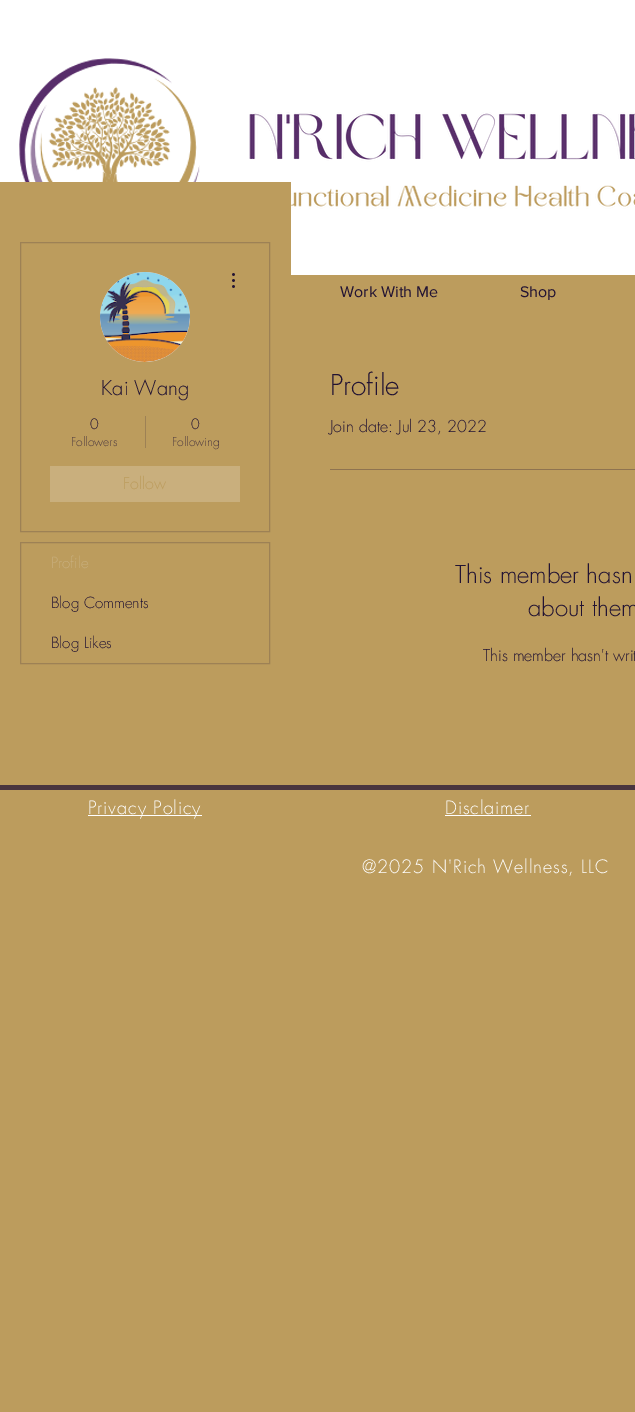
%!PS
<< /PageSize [635 1412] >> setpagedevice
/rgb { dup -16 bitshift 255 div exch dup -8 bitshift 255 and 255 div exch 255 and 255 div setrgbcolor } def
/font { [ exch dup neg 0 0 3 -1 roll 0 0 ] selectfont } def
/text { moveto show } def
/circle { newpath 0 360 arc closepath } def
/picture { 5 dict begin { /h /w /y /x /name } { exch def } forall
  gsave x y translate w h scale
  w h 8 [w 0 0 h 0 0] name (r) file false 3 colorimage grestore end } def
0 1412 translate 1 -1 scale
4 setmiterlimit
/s1 { /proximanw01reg-Regular 16 font 16#221333 rgb } def
/s2 { /futura-Light 20 font 16#221333 rgb } def
/s3 { /futura-Light 14 font 16#221333 rgb } def
/s4 { /futura-Light 12 font 16#503C40 rgb } def
/s5 { /futura-Light 16 font 16#BC9C5D rgb } def
/s6 { /futura-Light 15 font 16#C9AF7D rgb } def
/s7 { /futura-Light 15 font 16#221333 rgb } def
/s8 { /futura-Light 28 font 16#221333 rgb } def
/s9 { /futura-Light 16 font 16#221333 rgb } def
/s10 { /futura-Light 24 font 16#221333 rgb } def
16#BC9C5D rgb
0 0 635 1412 rectfill
16#FFFFFF rgb
0 0 635 275 rectfill
(pic1.raw) 19 58 181 124 picture
(pic2.raw) 249 112 386 97 picture
s1
(Work With Me) 340 297 text
(Shop) 520 297 text
16#BC9C5D rgb
0 182 291 93 rectfill
16#9D8155 rgb
20.5 242.5 249 289 rectstroke
16#D8D8D8 rgb
145 317 45 circle fill
(pic3.raw) 100 272 90 90 picture
(pic4.raw) 232 273 3 15 picture
s2
(Kai Wang) 101 395 text
s3
(0) 90 429 text
s4
(Followers) 71 446 text
16#9D8155 rgb
145 416 1 32 rectfill
s3
(0) 191 429 text
s4
(Following) 172 446 text
16#C9AF7D rgb
50 466 190 36 rectfill
s5
(Follow) 123 489 text
16#9D8155 rgb
20.5 542.5 249 121 rectstroke
s6
(Profile) 51 568 text
s7
(Blog Comments) 51 608 text
(Blog Likes) 51 648 text
s8
(Profile) 330 395 text
s9
(Join date: Jul 23, 2022) 330 432 text
16#8E7350 rgb
330 469 305 1 rectfill
s10
(This member hasn) 455 583 text
(about them) 528 616 text
s9
(This member hasn't writ) 483 661 text
16#49353E rgb
0 785 635 5 rectfill
16#FFFFFF rgb
88 815 114 1 rectfill
/futura-Light 18 font
88 814 moveto 0.9 0 (Privacy Policy) ashow
445 814 moveto 0.9 0 (Disclaimer) ashow
445 815 86 1 rectfill
362 873 moveto 0.9 0 (@2025 N'Rich Wellness, LLC) ashow
showpage
